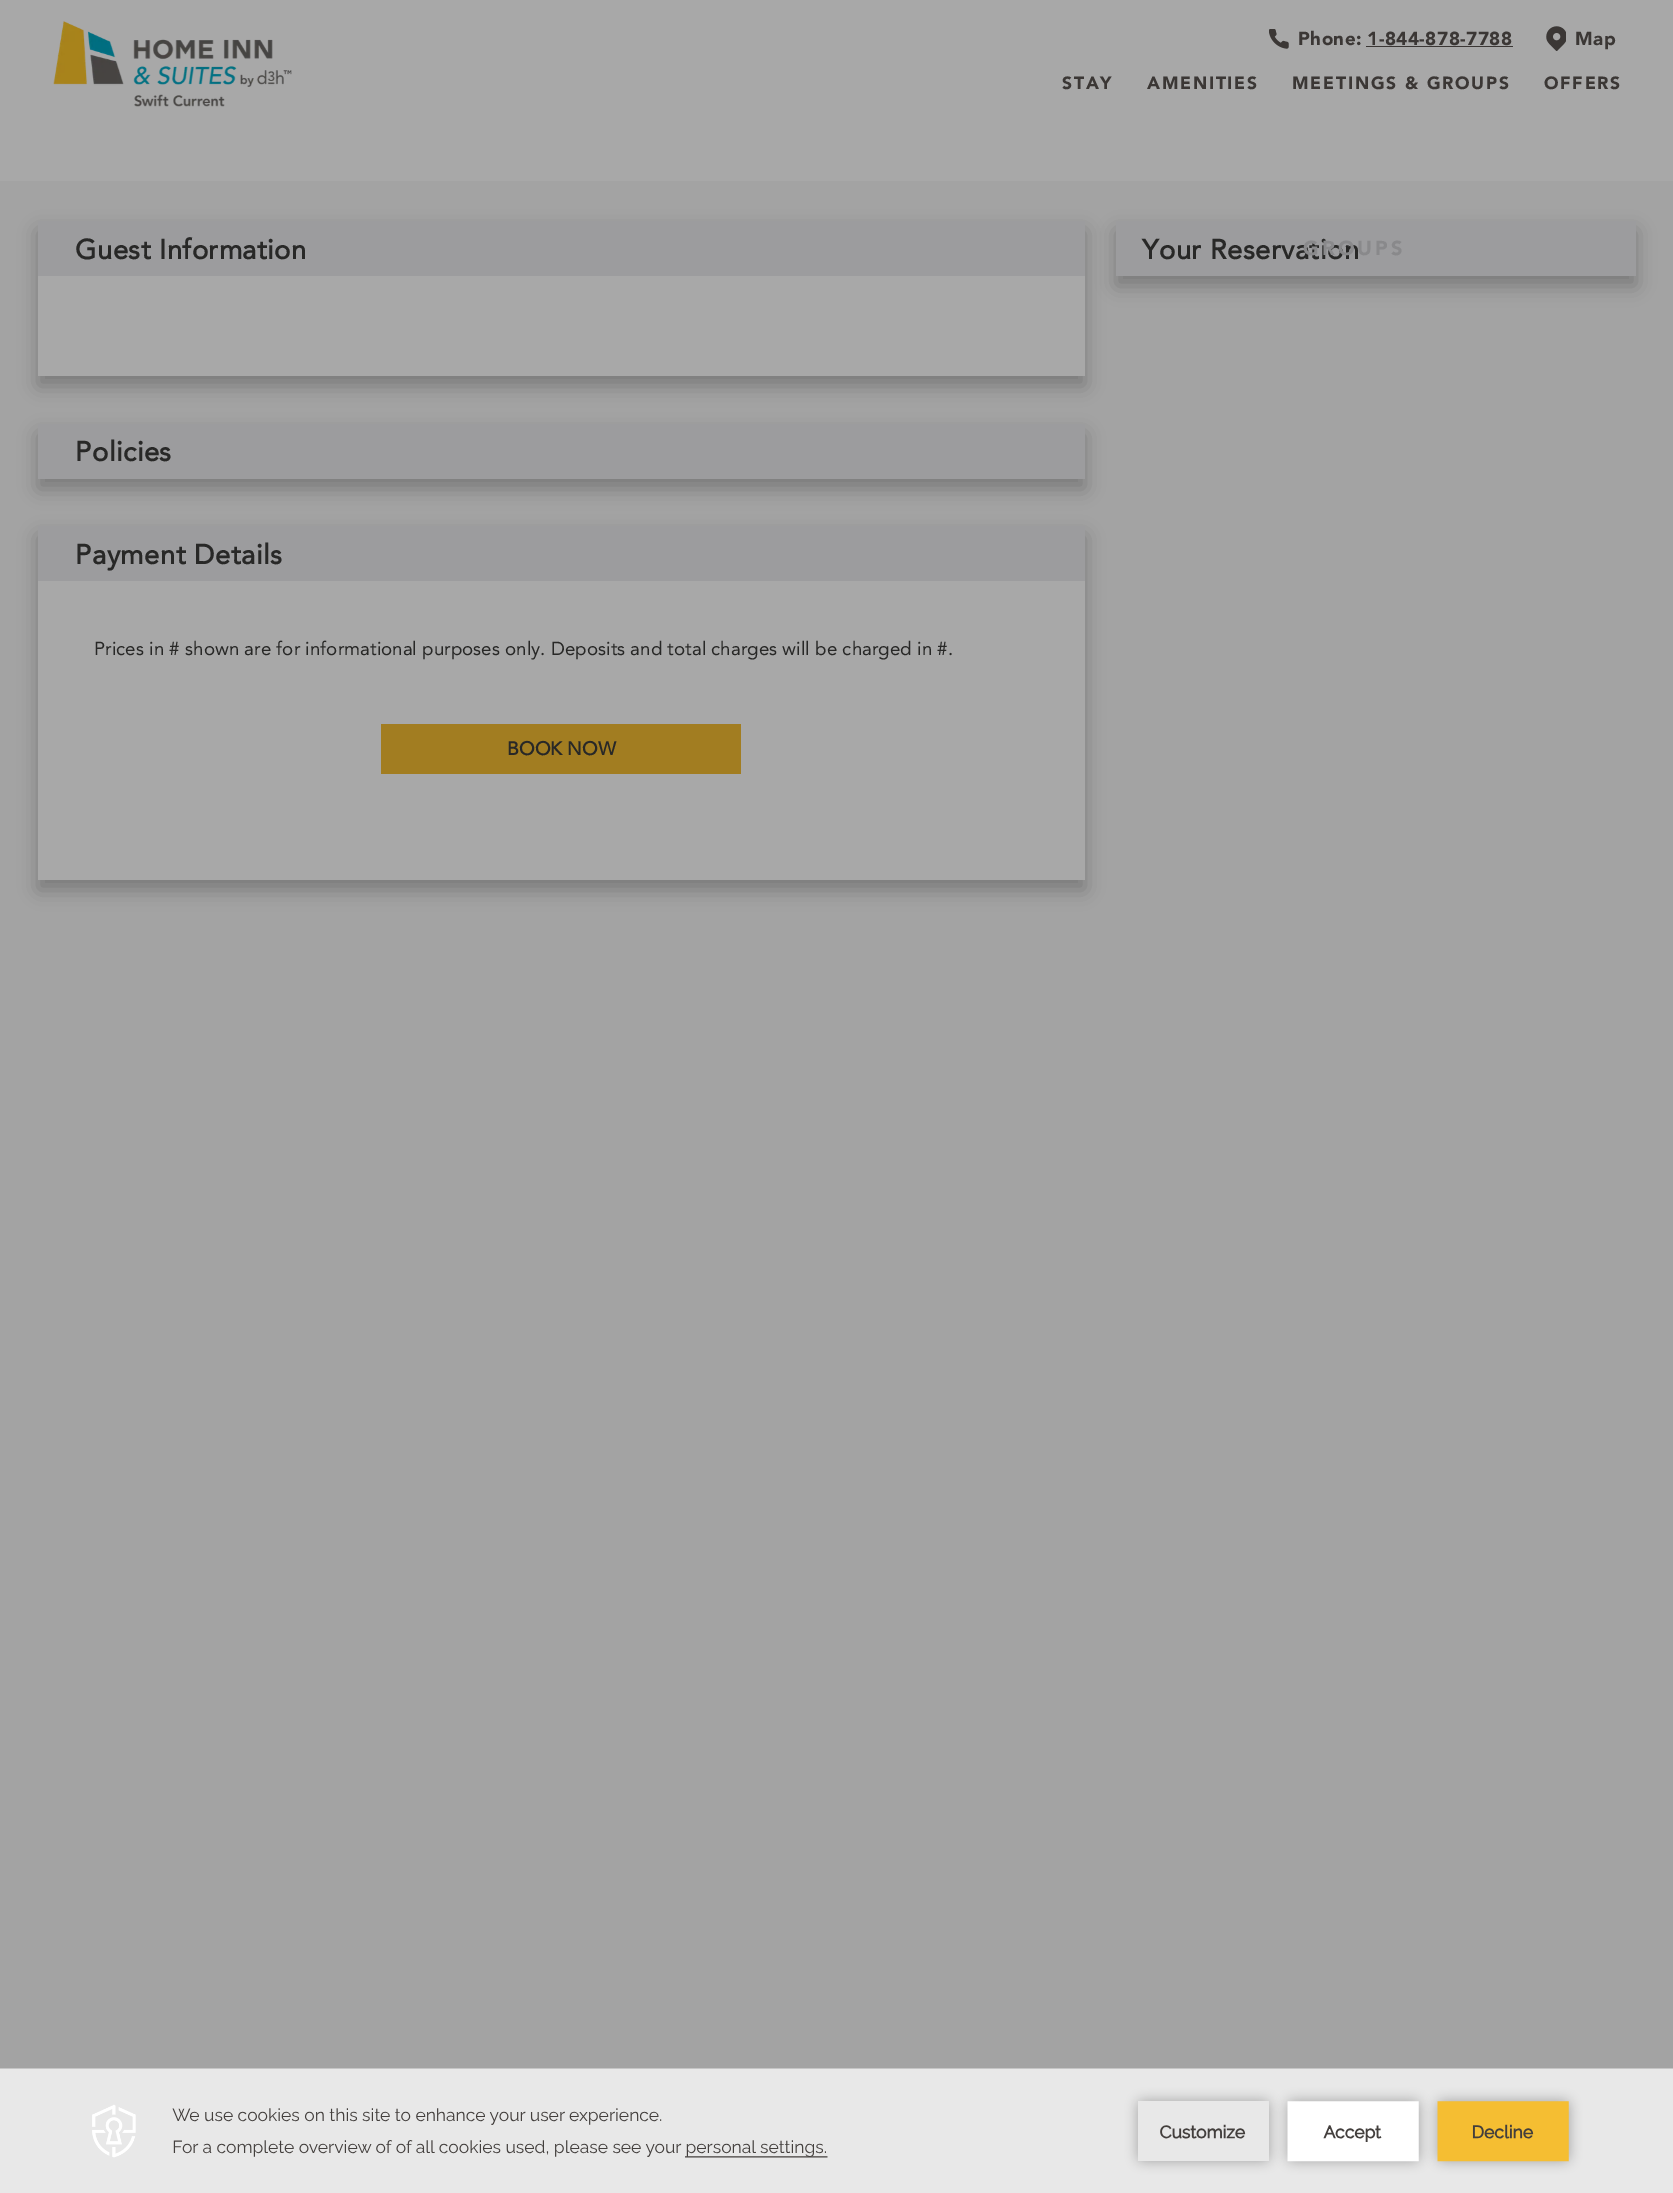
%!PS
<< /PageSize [1673 2193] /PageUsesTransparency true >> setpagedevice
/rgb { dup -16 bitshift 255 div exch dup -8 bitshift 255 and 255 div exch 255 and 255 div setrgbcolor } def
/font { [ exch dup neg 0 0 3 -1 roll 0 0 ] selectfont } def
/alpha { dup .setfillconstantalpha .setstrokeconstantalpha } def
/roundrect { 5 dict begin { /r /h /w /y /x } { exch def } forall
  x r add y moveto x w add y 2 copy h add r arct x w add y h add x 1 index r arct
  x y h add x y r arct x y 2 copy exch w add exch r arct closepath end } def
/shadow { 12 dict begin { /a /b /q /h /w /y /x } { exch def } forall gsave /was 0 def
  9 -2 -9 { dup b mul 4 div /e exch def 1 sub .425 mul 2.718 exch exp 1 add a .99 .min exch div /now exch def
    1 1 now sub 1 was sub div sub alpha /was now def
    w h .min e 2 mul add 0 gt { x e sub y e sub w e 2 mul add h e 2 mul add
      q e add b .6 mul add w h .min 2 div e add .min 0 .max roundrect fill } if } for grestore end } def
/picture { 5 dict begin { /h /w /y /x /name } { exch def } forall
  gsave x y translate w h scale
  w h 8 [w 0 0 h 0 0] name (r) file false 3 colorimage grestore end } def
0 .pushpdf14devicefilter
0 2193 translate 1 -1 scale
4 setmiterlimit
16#A8A8A8 rgb
0 0 1673 2193 rectfill
(pic1.raw) 53 21 239 86 picture
(pic2.raw) 1269 29 20 20 picture
/Avenir-Black 18.75 font
16#3B3735 rgb
1298 45 moveto 0.5 0 (Phone:) ashow
1367 45 moveto 0.5 0 (1-844-878-7788) ashow
1366 46 147 1 rectfill
(pic3.raw) 1546 26 20 25 picture
1575 45 moveto 0.5 0 (Map) ashow
/Avenir-Black 17.5 font
1062 89 moveto 1.75 0 (STAY) ashow
1147 89 moveto 1.75 0 (AMENITIES) ashow
1292 89 moveto 1.75 0 (MEETINGS & GROUPS) ashow
16#A3A3A3 rgb
0 181 1673 1888 rectfill
16#000000 rgb
1116 231 520 55 0 9.5 0.25 shadow
16#9C9C9E rgb
1116 221 520 55 rectfill
/Avenir-Bold 27.5 font
16#282827 rgb
1142 259 moveto 0.5 0 (Your Reservation) ashow
/Avenir-Black 20 font
16#89898B rgb
1303 255 moveto 3 0 (GROUPS) ashow
/Avenir-Black 17.5 font
16#3B3735 rgb
1544 89 moveto 1.75 0 (OFFERS) ashow
16#000000 rgb
38 231 1047 155 0 9.5 0.25 shadow
16#9C9C9E rgb
38 221 1047 55 rectfill
/Avenir-Bold 27.5 font
16#282827 rgb
75 259 moveto 0.5 0 (Guest Information) ashow
16#A8A8A8 rgb
38 276 1047 100 rectfill
16#000000 rgb
38 434 1047 55 0 9.5 0.25 shadow
16#9C9C9E rgb
38 424 1047 55 rectfill
16#282827 rgb
75 461 moveto 0.5 0 (Policies) ashow
16#000000 rgb
38 536 1047 354 0 9.5 0.25 shadow
16#9C9C9E rgb
38 526 1047 55 rectfill
16#282827 rgb
75 564 moveto 0.5 0 (Payment Details) ashow
16#A8A8A8 rgb
38 581 1047 299 rectfill
/Avenir-Regular 18.75 font
16#282827 rgb
94 655 moveto 0.04 0 (Prices in # shown are for informational purposes only. Deposits and total charges will be charged in #.) ashow
16#A27D21 rgb
381 724 360 50 rectfill
/Avenir-Bold 18.75 font
16#282827 rgb
507 755 moveto 0.04 0 (BOOK NOW) ashow
(pic4.raw) 0 2068 1673 125 picture
.poppdf14devicefilter showpage
